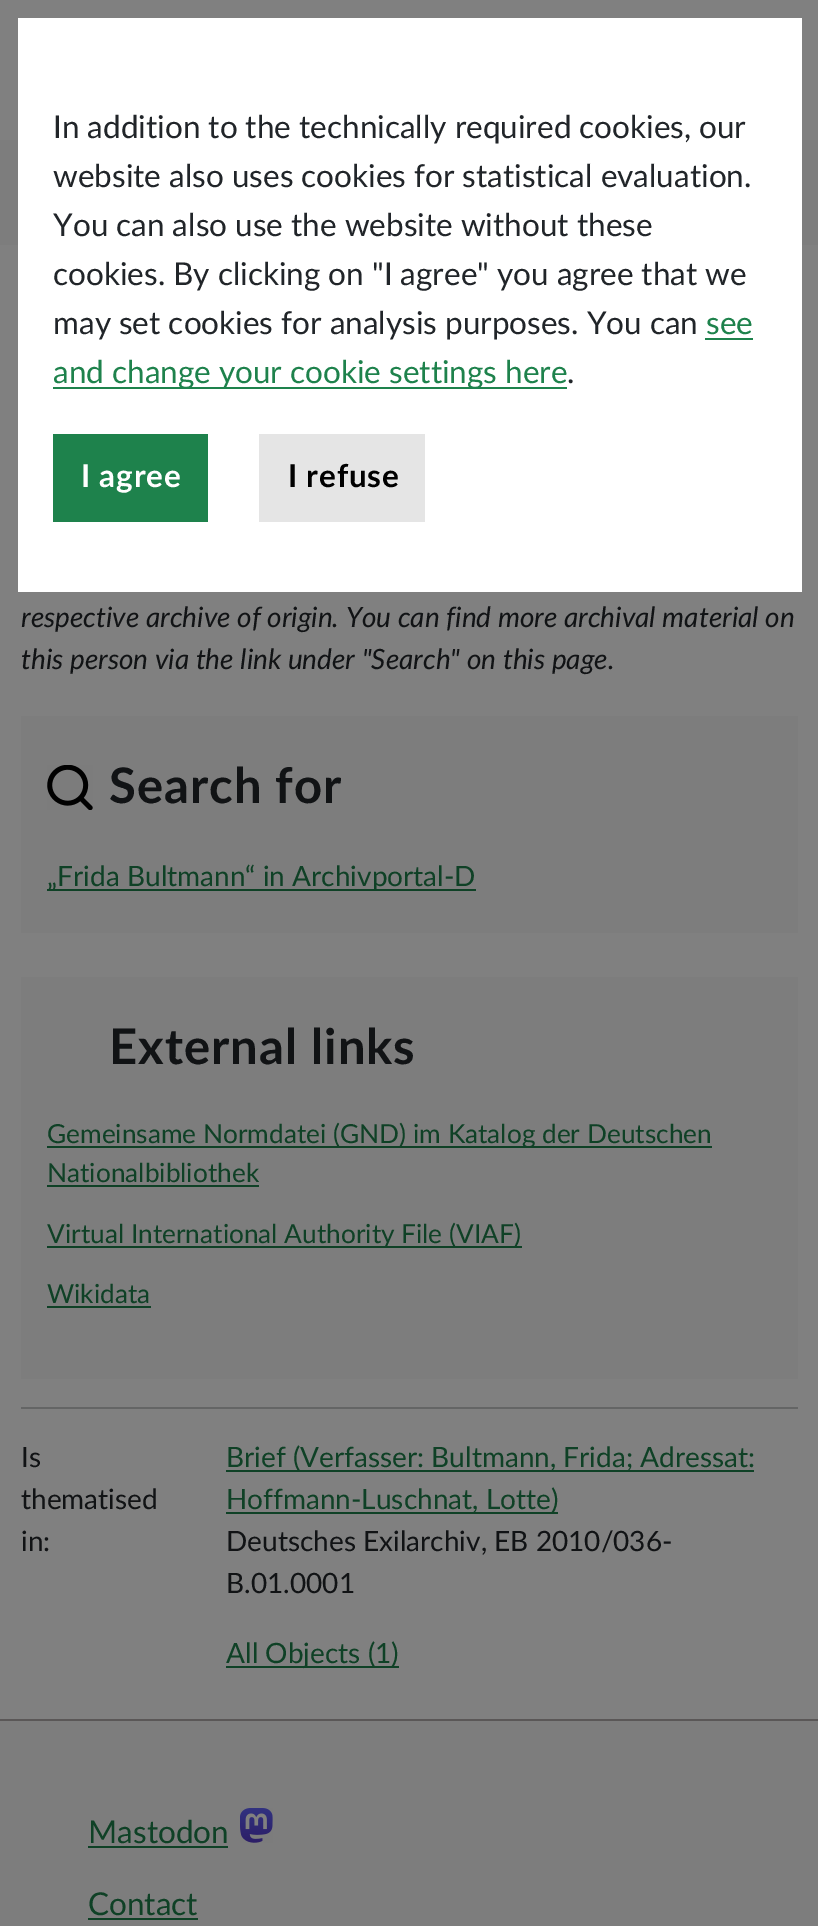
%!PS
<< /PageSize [818 1926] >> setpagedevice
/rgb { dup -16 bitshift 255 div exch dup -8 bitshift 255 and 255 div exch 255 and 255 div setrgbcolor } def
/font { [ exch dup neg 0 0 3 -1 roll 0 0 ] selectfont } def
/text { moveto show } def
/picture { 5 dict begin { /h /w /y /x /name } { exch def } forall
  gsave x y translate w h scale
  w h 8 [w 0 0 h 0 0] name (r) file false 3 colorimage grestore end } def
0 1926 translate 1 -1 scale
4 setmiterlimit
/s1 { /Lato-Regular 31.5 font 16#212529 rgb } def
/s2 { /Lato-Regular 31.5 font 16#1E824C rgb } def
/s3 { /Lato-Italic 28 font 16#111315 rgb } def
/s4 { /Lato-Regular 28 font 16#0F4126 rgb } def
/s5 { /Lato-Regular 26.25 font 16#0F4126 rgb } def
/s6 { /Lato-Regular 28 font 16#111315 rgb } def
/s7 { /Lato-Regular 31.5 font 16#0F4126 rgb } def
16#808080 rgb
0 0 818 1926 rectfill
16#7D7D7D rgb
0 140 818 105 rectfill
16#FFFFFF rgb
18 18 784 574 rectfill
s1
(In addition to the technically required cookies, our) 53 138 text
(website also uses cookies for statistical evaluation.) 53 187 text
(You can also use the website without these) 53 236 text
(cookies. By clicking on "I agree" you agree that we) 53 285 text
(may set cookies for analysis purposes. You can) 53 334 text
s2
(see) 706 334 text
705 338 48 2 rectfill
53 387 514 2 rectfill
(and change your cookie settings here) 53 383 text
s1
(.) 567 383 text
16#1E824C rgb
53 434 155 88 rectfill
/Lato-Bold 31.5 font
16#FFFFFF rgb
81 487 moveto 0.75 0 (I agree) ashow
16#E5E5E5 rgb
259 434 166 88 rectfill
16#000000 rgb
288 487 moveto 0.75 0 (I refuse) ashow
s3
(respective archive of origin. You can find more archival material on) 21 627 text
(this person via the link under "Search" on this page.) 21 669 text
16#7D7D7D rgb
21 716 777 217 rectfill
(pic1.raw) 47 765 46 45 picture
/Lato-Bold 49 font
16#111315 rgb
109 803 moveto 1 0 (Search for) ashow
16#0F4126 rgb
47 889 429 2 rectfill
s4
(„Frida Bultmann“ in Archivportal-D) 47 886 text
16#7D7D7D rgb
21 977 777 402 rectfill
/Lato-Bold 49 font
16#111315 rgb
109 1064 moveto 1 0 (External links) ashow
16#0F4126 rgb
47 1146 665 2 rectfill
s5
(Gemeinsame Normdatei \(GND\) im Katalog der Deutschen) 47 1143 text
(Nationalbibliothek) 47 1182 text
47 1185 212 2 rectfill
47 1246 475 2 rectfill
(Virtual International Authority File \(VIAF\)) 47 1243 text
(Wikidata) 47 1303 text
47 1306 104 2 rectfill
16#646565 rgb
21 1407 777 2 rectfill
s6
(Is) 21 1467 text
(thematised) 21 1509 text
(in:) 21 1551 text
16#0F4126 rgb
226 1470 528 2 rectfill
(Brief \(Verfasser: Bultmann, Frida; Adressat:) 226 1467 text
226 1512 332 2 rectfill
(Hoffmann-Luschnat, Lotte\)) 226 1509 text
s6
(Deutsches Exilarchiv, EB 2010/036-) 226 1551 text
(B.01.0001) 226 1593 text
16#0F4126 rgb
226 1666 173 2 rectfill
(All Objects \(1\)) 226 1663 text
16#7D7D7D rgb
0 1721 818 205 rectfill
16#5A5757 rgb
0 1719 818 2 rectfill
s7
(Mastodon) 88 1843 text
88 1846 140 2 rectfill
(pic2.raw) 240 1808 33 35 picture
(Contact) 88 1915 text
88 1918 110 2 rectfill
showpage
